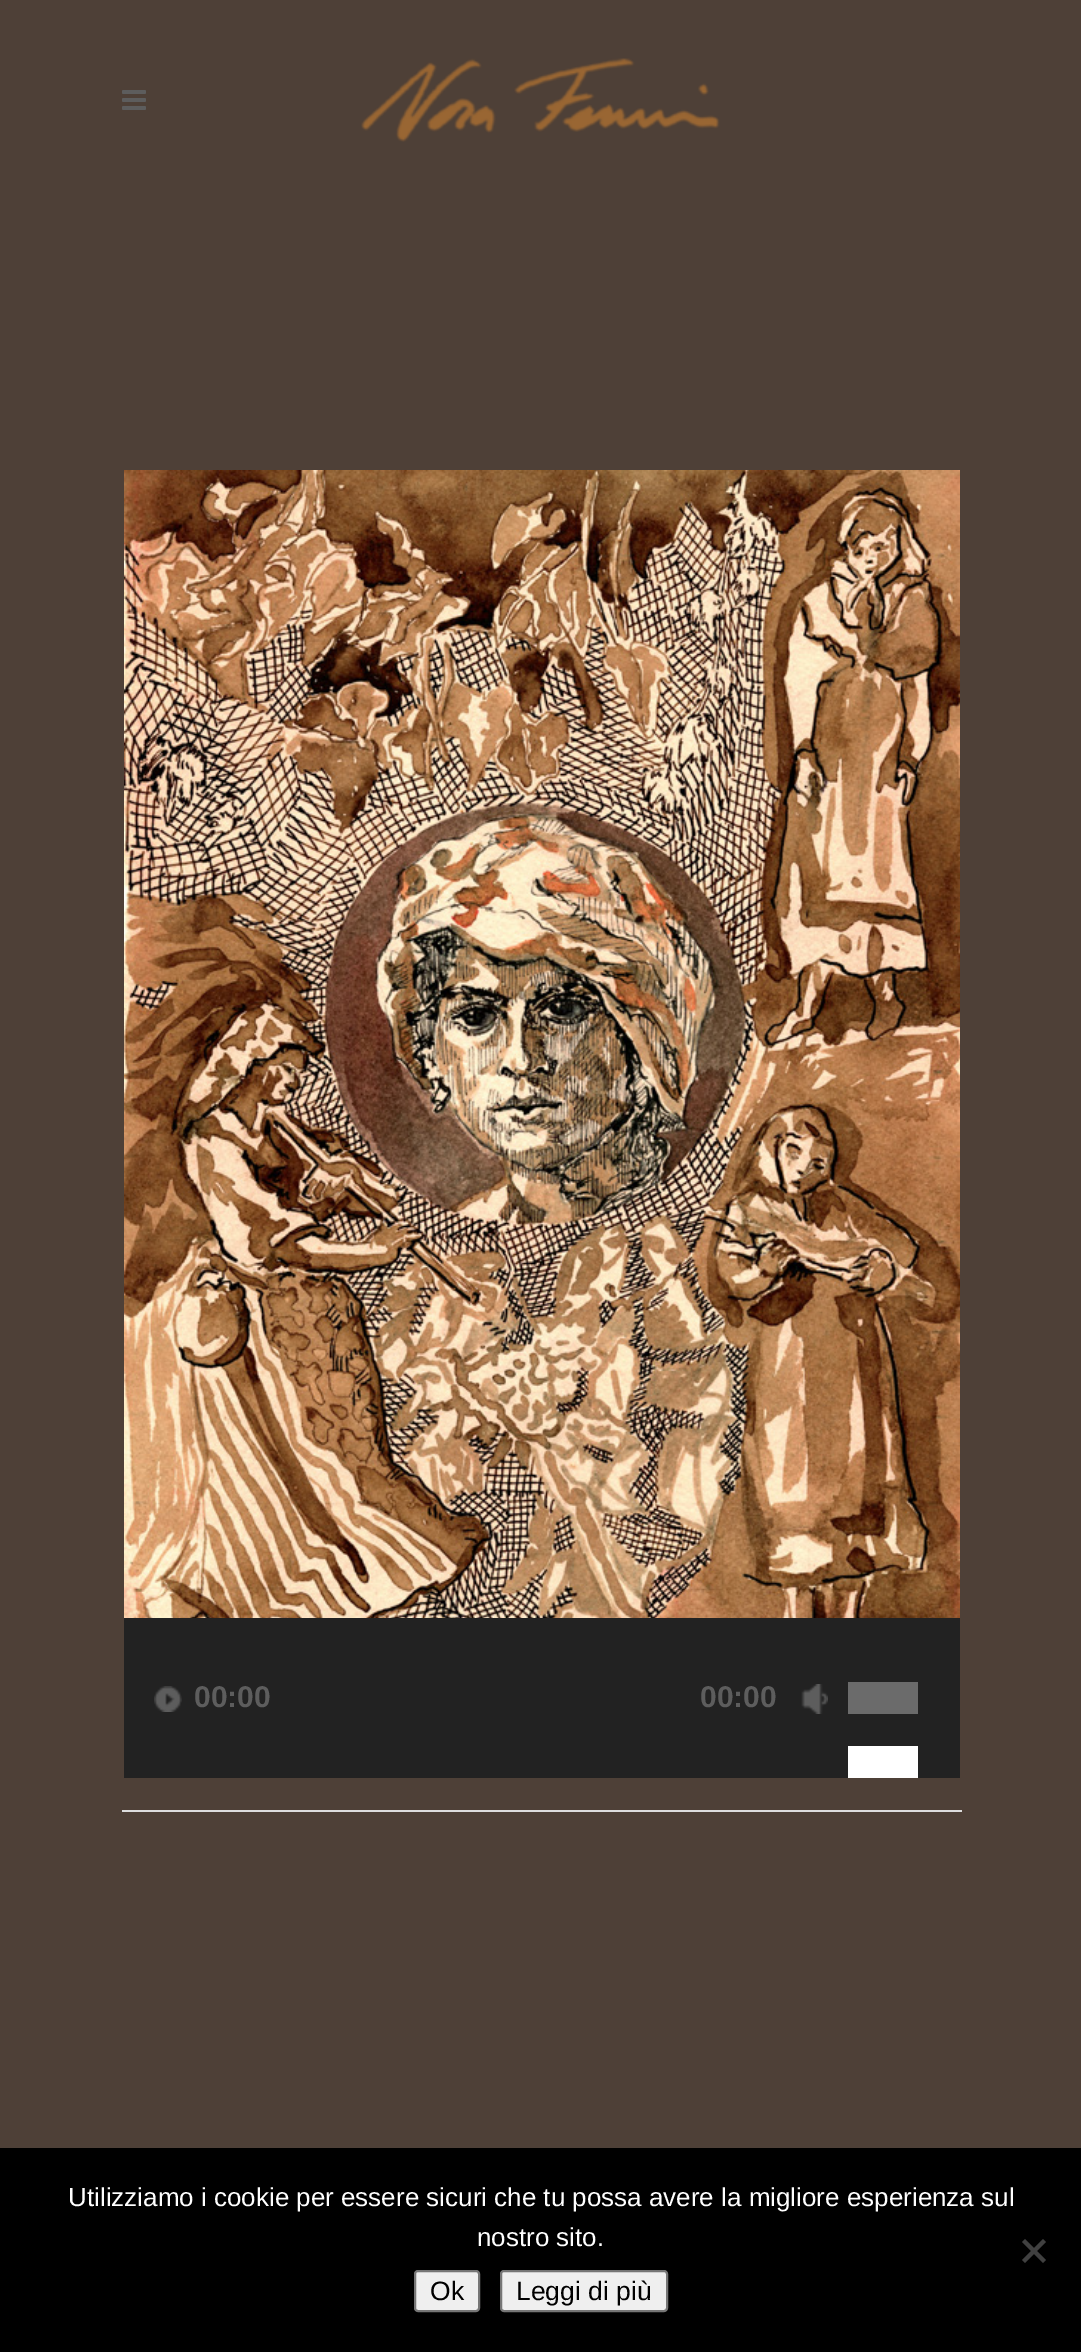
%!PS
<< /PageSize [1081 2352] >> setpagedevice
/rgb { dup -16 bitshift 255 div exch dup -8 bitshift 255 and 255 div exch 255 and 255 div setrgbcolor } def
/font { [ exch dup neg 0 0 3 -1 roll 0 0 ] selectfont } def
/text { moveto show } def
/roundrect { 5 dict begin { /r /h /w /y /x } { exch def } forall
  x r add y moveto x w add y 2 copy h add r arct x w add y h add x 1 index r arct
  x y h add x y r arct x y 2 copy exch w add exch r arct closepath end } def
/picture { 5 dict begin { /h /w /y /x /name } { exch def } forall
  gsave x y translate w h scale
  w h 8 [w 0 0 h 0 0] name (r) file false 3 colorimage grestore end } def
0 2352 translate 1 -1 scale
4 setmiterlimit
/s1 { /LiberationSans-Bold 30 font 16#5D5D5D rgb } def
/s2 { /LiberationSans-Regular 26 font 16#FFFFFF rgb } def
/s3 { /LiberationSans-Regular 26.5 font 16#000000 rgb } def
16#4E4037 rgb
0 0 1081 2352 rectfill
(pic1.raw) 122 90 24 20 picture
(pic2.raw) 361 58 359 84 picture
(pic3.raw) 124 470 836 1148 picture
16#222222 rgb
124 1618 836 160 rectfill
(pic4.raw) 154 1686 28 26 picture
s1
(00:00) 194 1707 text
(00:00) 700 1707 text
(pic5.raw) 801 1684 27 30 picture
16#6B6B6B rgb
848 1682 70 32 rectfill
16#FFFFFF rgb
848 1746 70 32 rectfill
16#DDDDDD rgb
122 1810 840 2 rectfill
16#000000 rgb
0 2148 1081 204 rectfill
s2
(Utilizziamo i cookie per essere sicuri che tu possa avere la migliore esperienza sul) 68 2206 text
(nostro sito.) 477 2246 text
16#404040 rgb
1043 2239 moveto 1046 2242 lineto 1025 2263 lineto 1022 2260 lineto closepath fill
1022 2242 moveto 1025 2239 lineto 1046 2260 lineto 1043 2263 lineto closepath fill
16#EFEFEF rgb
415 2271 64 40 3 roundrect gsave fill grestore
16#767676 rgb
2 setlinewidth
stroke
s3
(Ok) 430 2300 text
16#EFEFEF rgb
501 2271 166 40 3 roundrect gsave fill grestore
16#767676 rgb
stroke
s3
(Leggi di più) 516 2300 text
showpage
